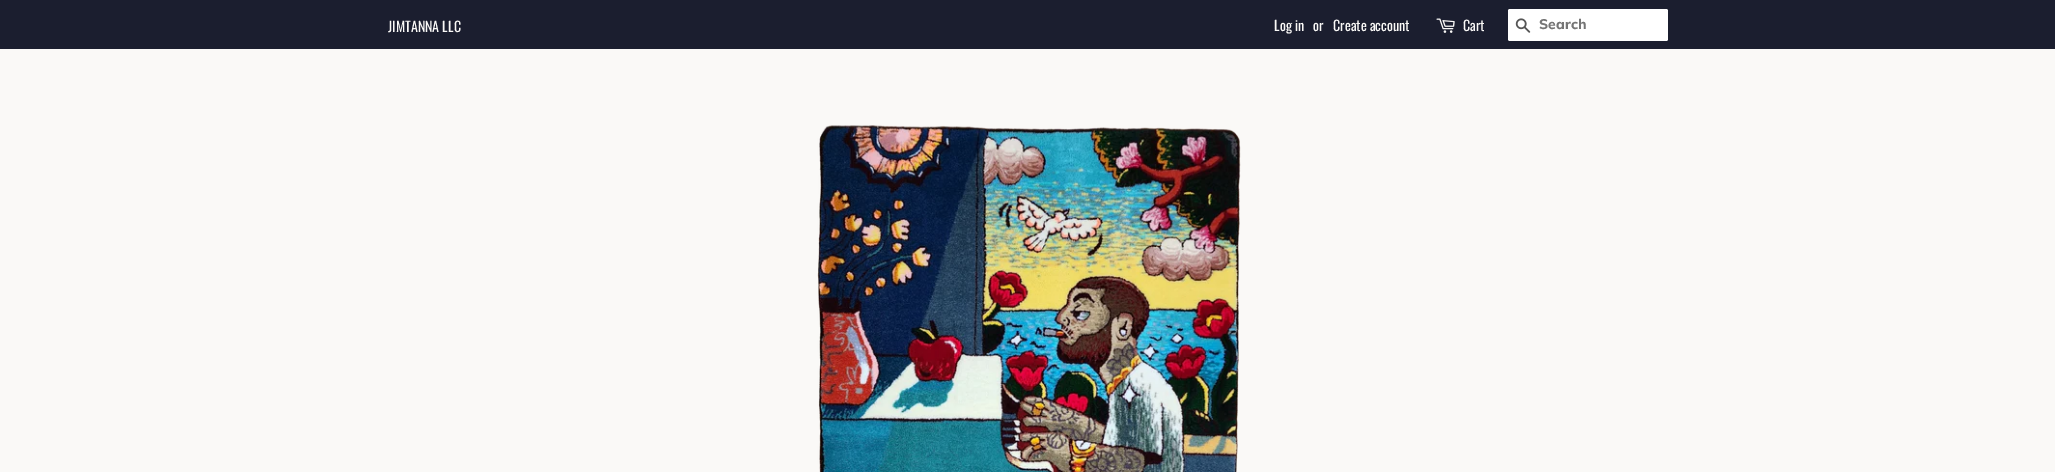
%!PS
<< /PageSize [2055 472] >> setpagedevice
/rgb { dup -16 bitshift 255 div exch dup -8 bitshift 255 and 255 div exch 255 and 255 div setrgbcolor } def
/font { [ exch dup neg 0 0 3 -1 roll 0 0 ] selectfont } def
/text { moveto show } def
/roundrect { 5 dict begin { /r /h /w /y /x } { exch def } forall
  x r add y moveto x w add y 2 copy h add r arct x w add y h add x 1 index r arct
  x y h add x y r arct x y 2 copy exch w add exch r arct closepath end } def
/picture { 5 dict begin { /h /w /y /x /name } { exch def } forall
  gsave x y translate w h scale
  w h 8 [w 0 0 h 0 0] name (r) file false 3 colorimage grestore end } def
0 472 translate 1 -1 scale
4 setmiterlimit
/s1 { /Oswald-Regular 14 font 16#FAF9F7 rgb } def
/s2 { /Muli-ExtraBold 14 font 16#757575 rgb } def
16#FAF9F7 rgb
0 0 2055 472 rectfill
16#1B1E2F rgb
0 0 2055 49 rectfill
s1
(JIMTANNA LLC) 388 32 text
(Log in) 1274 31 text
(or) 1313 31 text
(Create account) 1333 31 text
(pic1.raw) 1436 18 19 15 picture
(Cart) 1463 31 text
16#FFFFFF rgb
1508 9 160 32 2 roundrect fill
(pic2.raw) 1515 18 16 15 picture
s2
(Search) 1539 29 text
(pic3.raw) 817 125 424 347 picture
showpage
